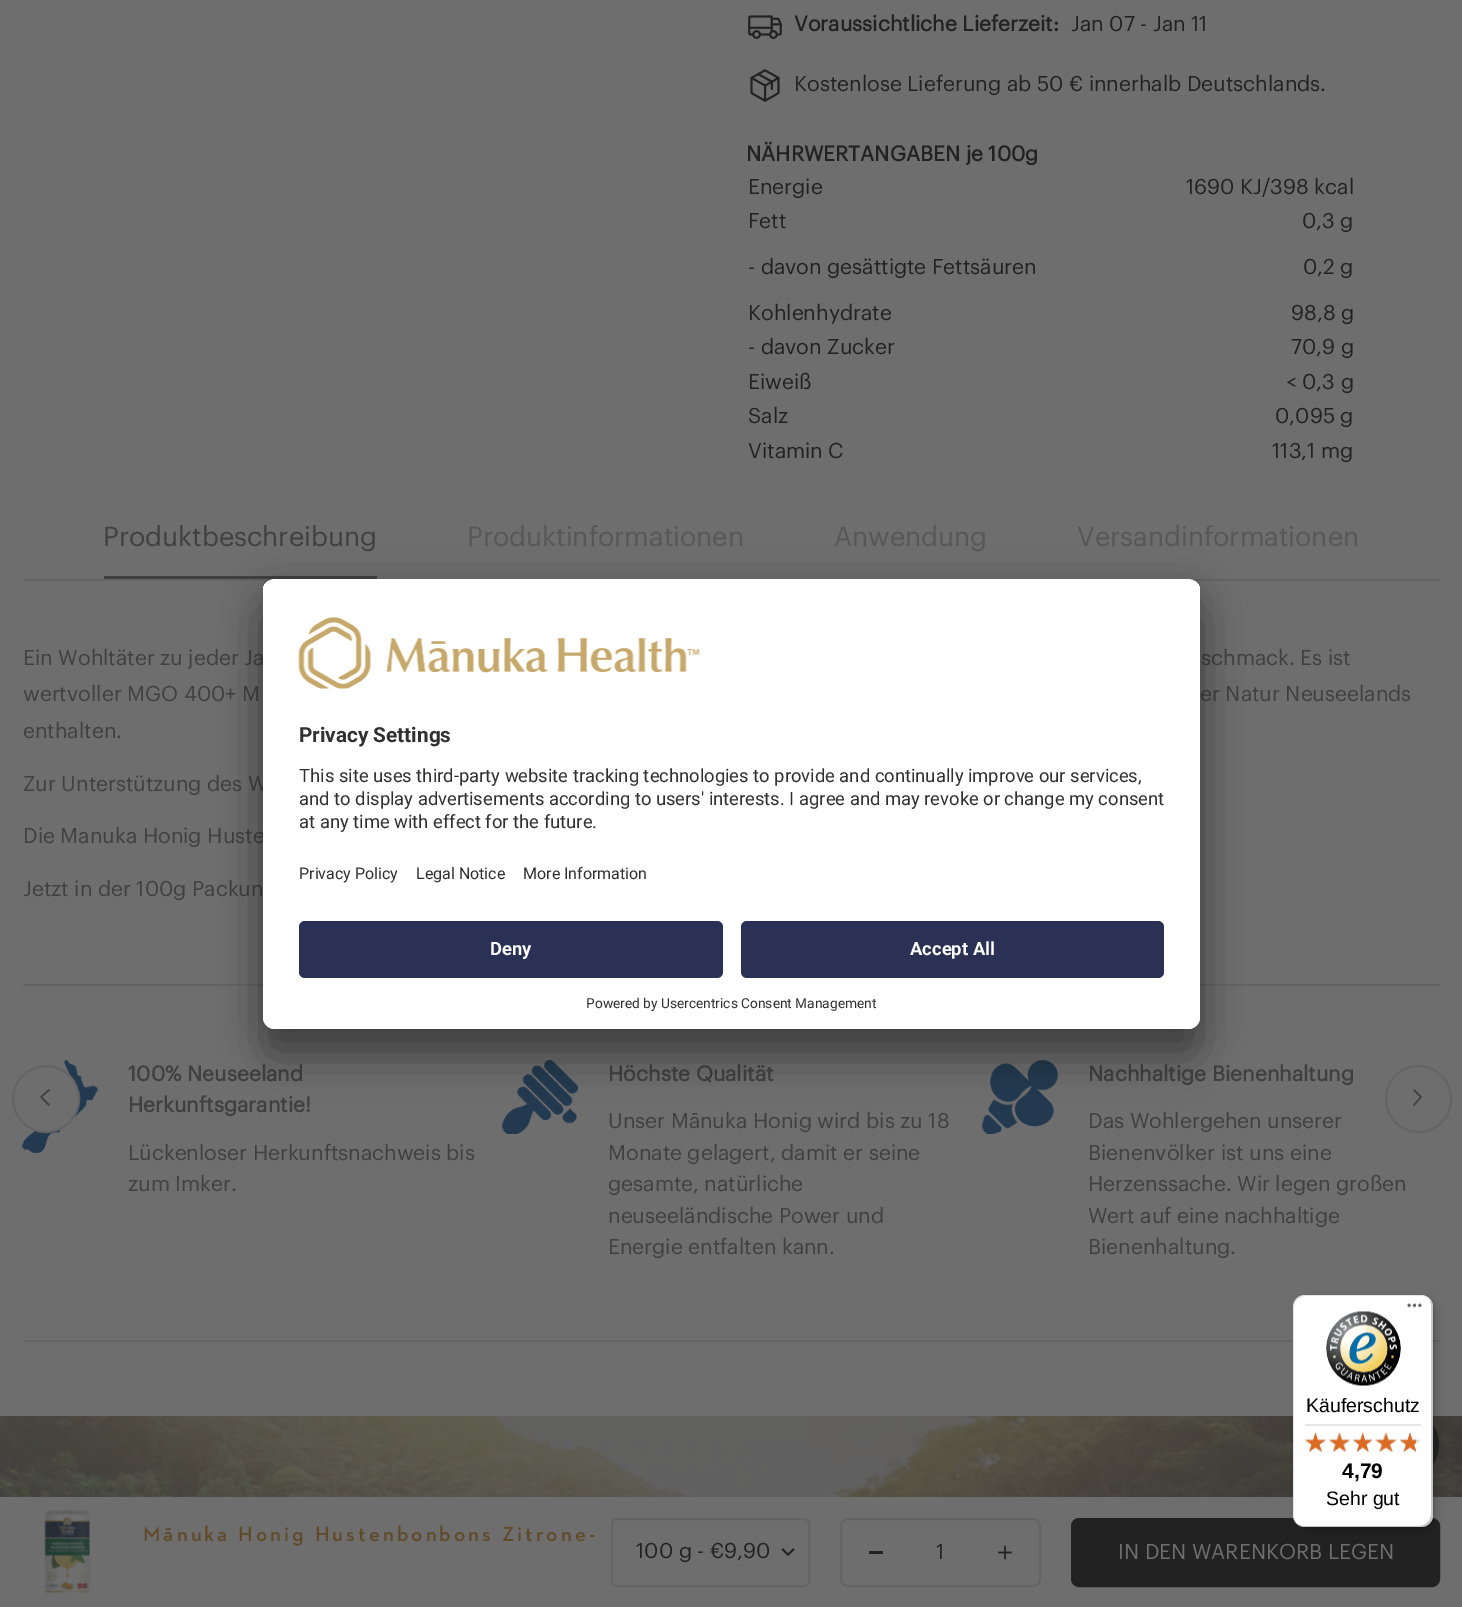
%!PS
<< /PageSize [1462 1607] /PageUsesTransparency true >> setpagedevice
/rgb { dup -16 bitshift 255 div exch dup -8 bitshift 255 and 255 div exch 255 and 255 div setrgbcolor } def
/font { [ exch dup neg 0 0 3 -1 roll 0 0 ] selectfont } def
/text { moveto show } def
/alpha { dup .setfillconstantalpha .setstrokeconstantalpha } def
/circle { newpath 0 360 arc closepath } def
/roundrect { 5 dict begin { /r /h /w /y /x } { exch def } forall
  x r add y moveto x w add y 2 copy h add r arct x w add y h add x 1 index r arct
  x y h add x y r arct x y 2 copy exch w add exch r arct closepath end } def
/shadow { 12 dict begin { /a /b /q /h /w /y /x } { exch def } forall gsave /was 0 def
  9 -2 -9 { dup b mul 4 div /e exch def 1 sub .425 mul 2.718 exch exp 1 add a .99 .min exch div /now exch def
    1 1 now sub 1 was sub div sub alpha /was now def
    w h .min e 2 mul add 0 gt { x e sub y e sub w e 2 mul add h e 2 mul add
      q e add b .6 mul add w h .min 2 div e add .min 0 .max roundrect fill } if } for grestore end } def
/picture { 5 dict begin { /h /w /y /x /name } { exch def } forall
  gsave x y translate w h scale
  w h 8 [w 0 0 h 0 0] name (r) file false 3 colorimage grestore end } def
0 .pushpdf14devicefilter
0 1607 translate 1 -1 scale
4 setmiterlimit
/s1 { /Graphik-Bold 21 font 16#222222 rgb } def
/s2 { /Graphik-Regular 21 font 16#222222 rgb } def
/s3 { /Graphik-Regular 21 font 16#6E6E6E rgb } def
/s4 { /Graphik-Regular 27 font 16#404040 rgb } def
/s5 { /Graphik-Regular 27 font 16#575757 rgb } def
/s6 { /Graphik-Regular 21 font 16#404040 rgb } def
/s7 { /Graphik-Bold 21 font 16#404040 rgb } def
/s8 { /Roboto-Bold 20.75 font 16#303030 rgb } def
/s9 { /Roboto-Regular 18.4 font 16#303030 rgb } def
/s10 { /Roboto-Regular 16 font 16#303030 rgb } def
/s11 { /Roboto-Bold 18.4 font 16#FFFFFF rgb } def
/s12 { /Roboto-Regular 13.75 font 16#303030 rgb } def
/s13 { /LiberationSans-Regular 19.5 font 16#000000 rgb } def
/s14 { /LiberationSans-Bold 21 font 16#000000 rgb } def
16#6E6E6E rgb
0 0 1462 1607 rectfill
(pic1.raw) 748 15 34 24 picture
s1
(Voraussichtliche Lieferzeit:) 794 31 text
s2
(Jan 07 - Jan 11) 1071 31 text
(pic2.raw) 750 69 30 33 picture
(Kostenlose Lieferung ab 50 € innerhalb Deutschlands.) 794 91 text
s1
(NÄHRWERTANGABEN je 100g) 746 161 text
s2
(Energie) 748 194 text
(1690 KJ/398 kcal) 1186 194 text
(Fett) 748 228 text
(0,3 g) 1302 228 text
(- davon gesättigte Fettsäuren) 748 274 text
(0,2 g) 1303 274 text
(Kohlenhydrate) 748 320 text
(98,8 g) 1291 320 text
(- davon Zucker) 748 354 text
(70,9 g) 1291 354 text
(Eiweiß) 748 389 text
(< 0,3 g) 1286 389 text
(Salz) 748 423 text
(0,095 g) 1275 423 text
(Vitamin C) 748 458 text
(113,1 mg) 1272 458 text
(pic3.raw) 44 1510 46 83 picture
/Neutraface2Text-SemiBold 21 font
16#614A29 rgb
143 1541 moveto 3 0 (Mānuka Honig Hustenbonbons Zitrone-) ashow
(pic4.raw) 781 1548 14 8 picture
16#646464 rgb
2 setlinewidth
612 1519 197 67 5 roundrect stroke
s2
(100 g - €9,90) 636 1558 text
16#646464 rgb
841 1519 199 67 7 roundrect stroke
16#222222 rgb
869 1551 14 3 rectfill
(1) 936 1559 text
(pic5.raw) 998 1545 14 15 picture
1072 1519 367 67 7 roundrect gsave fill grestore
stroke
s3
(IN DEN WARENKORB LEGEN) 1118 1559 text
16#646464 rgb
23 579 1417 2 rectfill
s4
(Produktbeschreibung) 103 546 text
104 576 273 3 rectfill
s5
(Produktinformationen) 467 546 text
(Anwendung) 834 546 text
(Versandinformationen) 1077 546 text
s6
(Ein Wohltäter zu jeder Ja) 23 665 text
(schmack. Es ist) 1201 665 text
(wertvoller MGO 400+ M) 23 701 text
(er Natur Neuseelands) 1200 701 text
(enthalten.) 23 738 text
(Zur Unterstützung des W) 23 791 text
(Die Manuka Honig Huste) 23 843 text
(Jetzt in der 100g Packun) 23 896 text
16#646464 rgb
23 984 1417 2 rectfill
(pic6.raw) 22 1060 76 93 picture
s7
(100% Neuseeland) 128 1081 text
(Herkunftsgarantie!) 128 1112 text
s6
(Lückenloser Herkunftsnachweis bis) 128 1160 text
(zum Imker.) 128 1191 text
(pic7.raw) 502 1060 76 74 picture
s7
(Höchste Qualität) 608 1081 text
s6
(Unser Mānuka Honig wird bis zu 18) 608 1128 text
(Monate gelagert, damit er seine) 608 1160 text
(gesamte, natürliche) 608 1191 text
(neuseeländische Power und) 608 1223 text
(Energie entfalten kann.) 608 1254 text
(pic8.raw) 982 1060 76 74 picture
s7
(Nachhaltige Bienenhaltung) 1088 1081 text
s6
(Das Wohlergehen unserer) 1088 1128 text
(Bienenvölker ist uns eine) 1088 1160 text
(Herzenssache. Wir legen großen) 1088 1191 text
(Wert auf eine nachhaltige) 1088 1223 text
(Bienenhaltung.) 1088 1254 text
16#6E6E6E rgb
46 1099 33 circle gsave fill grestore
16#646464 rgb
stroke
16#404040 rgb
1.5 setlinewidth
1 setlinecap
1 setlinejoin
49 1105 moveto 41 1097 lineto 49 1090 lineto stroke
16#646464 rgb
2 setlinewidth
0 setlinecap
0 setlinejoin
1386 1066 65 66 32.5 roundrect stroke
16#404040 rgb
1.5 setlinewidth
1 setlinecap
1 setlinejoin
1414 1105 moveto 1421 1097 lineto 1414 1090 lineto stroke
16#646464 rgb
23 1340 1417 2 rectfill
(pic9.raw) 0 1416 1462 81 picture
16#000000 rgb
263 609 937 450 12 21 0.3 shadow
263 587 937 450 12 19.5 0.22 shadow
16#FFFFFF rgb
263 579 937 450 12 roundrect fill
gsave
263 579 937 450 12 roundrect clip newpath
275 579 moveto 1188 579 lineto 1194.5 579 1200 584.5 1200 591 curveto 1200 909 lineto 263 909 lineto 263 591 lineto 263 584.5 268.5 579 275 579 curveto closepath clip newpath
263 581 937 328 rectfill
grestore
(pic10.raw) 298 617 402 72 picture
s8
(Privacy Settings) 299 742 text
s9
(This site uses third-party website tracking technologies to provide and continually improve our services,) 299 782 text
(and to display advertisements according to users' interests. I agree and may revoke or change my consent) 299 805 text
(at any time with effect for the future.) 299 828 text
s10
(Privacy Policy) 299 879 text
(Legal Notice) 416 879 text
(More Information) 523 879 text
16#FFFFFF rgb
263 909 moveto 1200 909 lineto 1200 1017 lineto 1200 1023.5 1194.5 1029 1188 1029 curveto 275 1029 lineto 268.5 1029 263 1023.5 263 1017 curveto closepath fill
16#2A3155 rgb
299 921 424 57 6 roundrect fill
s11
(Deny) 490 955 text
16#2A3155 rgb
741 921 423 57 6 roundrect fill
s11
(Accept All) 910 955 text
s12
(Powered by Usercentrics Consent Management) 586 1008 text
16#222222 rgb
1404.5 1444.5 33.5 circle gsave fill grestore
2 setlinewidth
0 setlinecap
0 setlinejoin
stroke
16#000000 rgb
1298 1299 139 233 12 6 0.15 shadow
1295 1296 139 233 12 1.5 0.15 shadow
16#FFFFFF rgb
1293 1295 140 232 12 roundrect fill
0.1 alpha
16#000000 rgb
1306 1296 moveto 1422 1296 lineto 1425 1296 1427 1297 1429 1298 curveto 1427 1296 1424 1295 1421 1295 curveto 1305 1295 lineto 1298 1295 1293 1300 1293 1307 curveto 1293 1515 lineto 1293 1519 1295 1522 1297 1524 curveto 1295 1522 1294 1519 1294 1516 curveto 1294 1308 lineto 1294 1301 1300 1296 1306 1296 curveto closepath fill
0.2 alpha
1296 1523 moveto 1298 1525 1301 1527 1305 1527 curveto 1421 1527 lineto 1428 1527 1433 1522 1433 1515 curveto 1433 1307 lineto 1433 1303 1431 1300 1429 1298 curveto 1430 1300 1431 1302 1431 1305 curveto 1431 1514 lineto 1431 1520 1426 1526 1419 1526 curveto 1304 1526 lineto 1301 1526 1298 1525 1296 1523 curveto closepath fill
16#323232 rgb
1297 1524 moveto 1299 1526 1302 1527 1305 1527 curveto 1421 1527 lineto 1428 1527 1433 1522 1433 1515 curveto 1433 1307 lineto 1433 1303 1431 1300 1429 1298 curveto 1431 1300 1432 1303 1432 1306 curveto 1432 1514 lineto 1432 1521 1426 1526 1420 1526 curveto 1304 1526 lineto 1301 1526 1299 1525 1297 1524 curveto closepath fill
0.3 alpha
16#FFFFFF rgb
1296 1523 moveto 1298 1525 1301 1527 1305 1527 curveto 1421 1527 lineto 1428 1527 1433 1522 1433 1515 curveto 1433 1307 lineto 1433 1303 1431 1300 1429 1298 curveto 1431 1300 1432 1303 1432 1306 curveto 1432 1514 lineto 1432 1521 1426 1526 1420 1526 curveto 1304 1526 lineto 1301 1526 1298 1525 1296 1523 curveto closepath fill
1 alpha
(pic11.raw) 1407 1303 15 5 picture
(pic12.raw) 1326 1311 75 75 picture
s13
(Käuferschutz) 1306 1412 text
16#E5E5E5 rgb
1305 1424 116 2 rectfill
(pic13.raw) 1305 1432 21 20 picture
(pic14.raw) 1329 1433 21 19 picture
(pic15.raw) 1353 1432 19 20 picture
(pic16.raw) 1376 1433 20 19 picture
(pic17.raw) 1400 1432 20 20 picture
(pic18.raw) 1305 1432 21 20 picture
(pic19.raw) 1329 1432 21 20 picture
(pic20.raw) 1353 1432 19 20 picture
(pic21.raw) 1375 1432 22 20 picture
(pic22.raw) 1400 1432 16 20 picture
s14
(4,79) 1342 1478 text
s13
(Sehr gut) 1326 1505 text
.poppdf14devicefilter showpage
